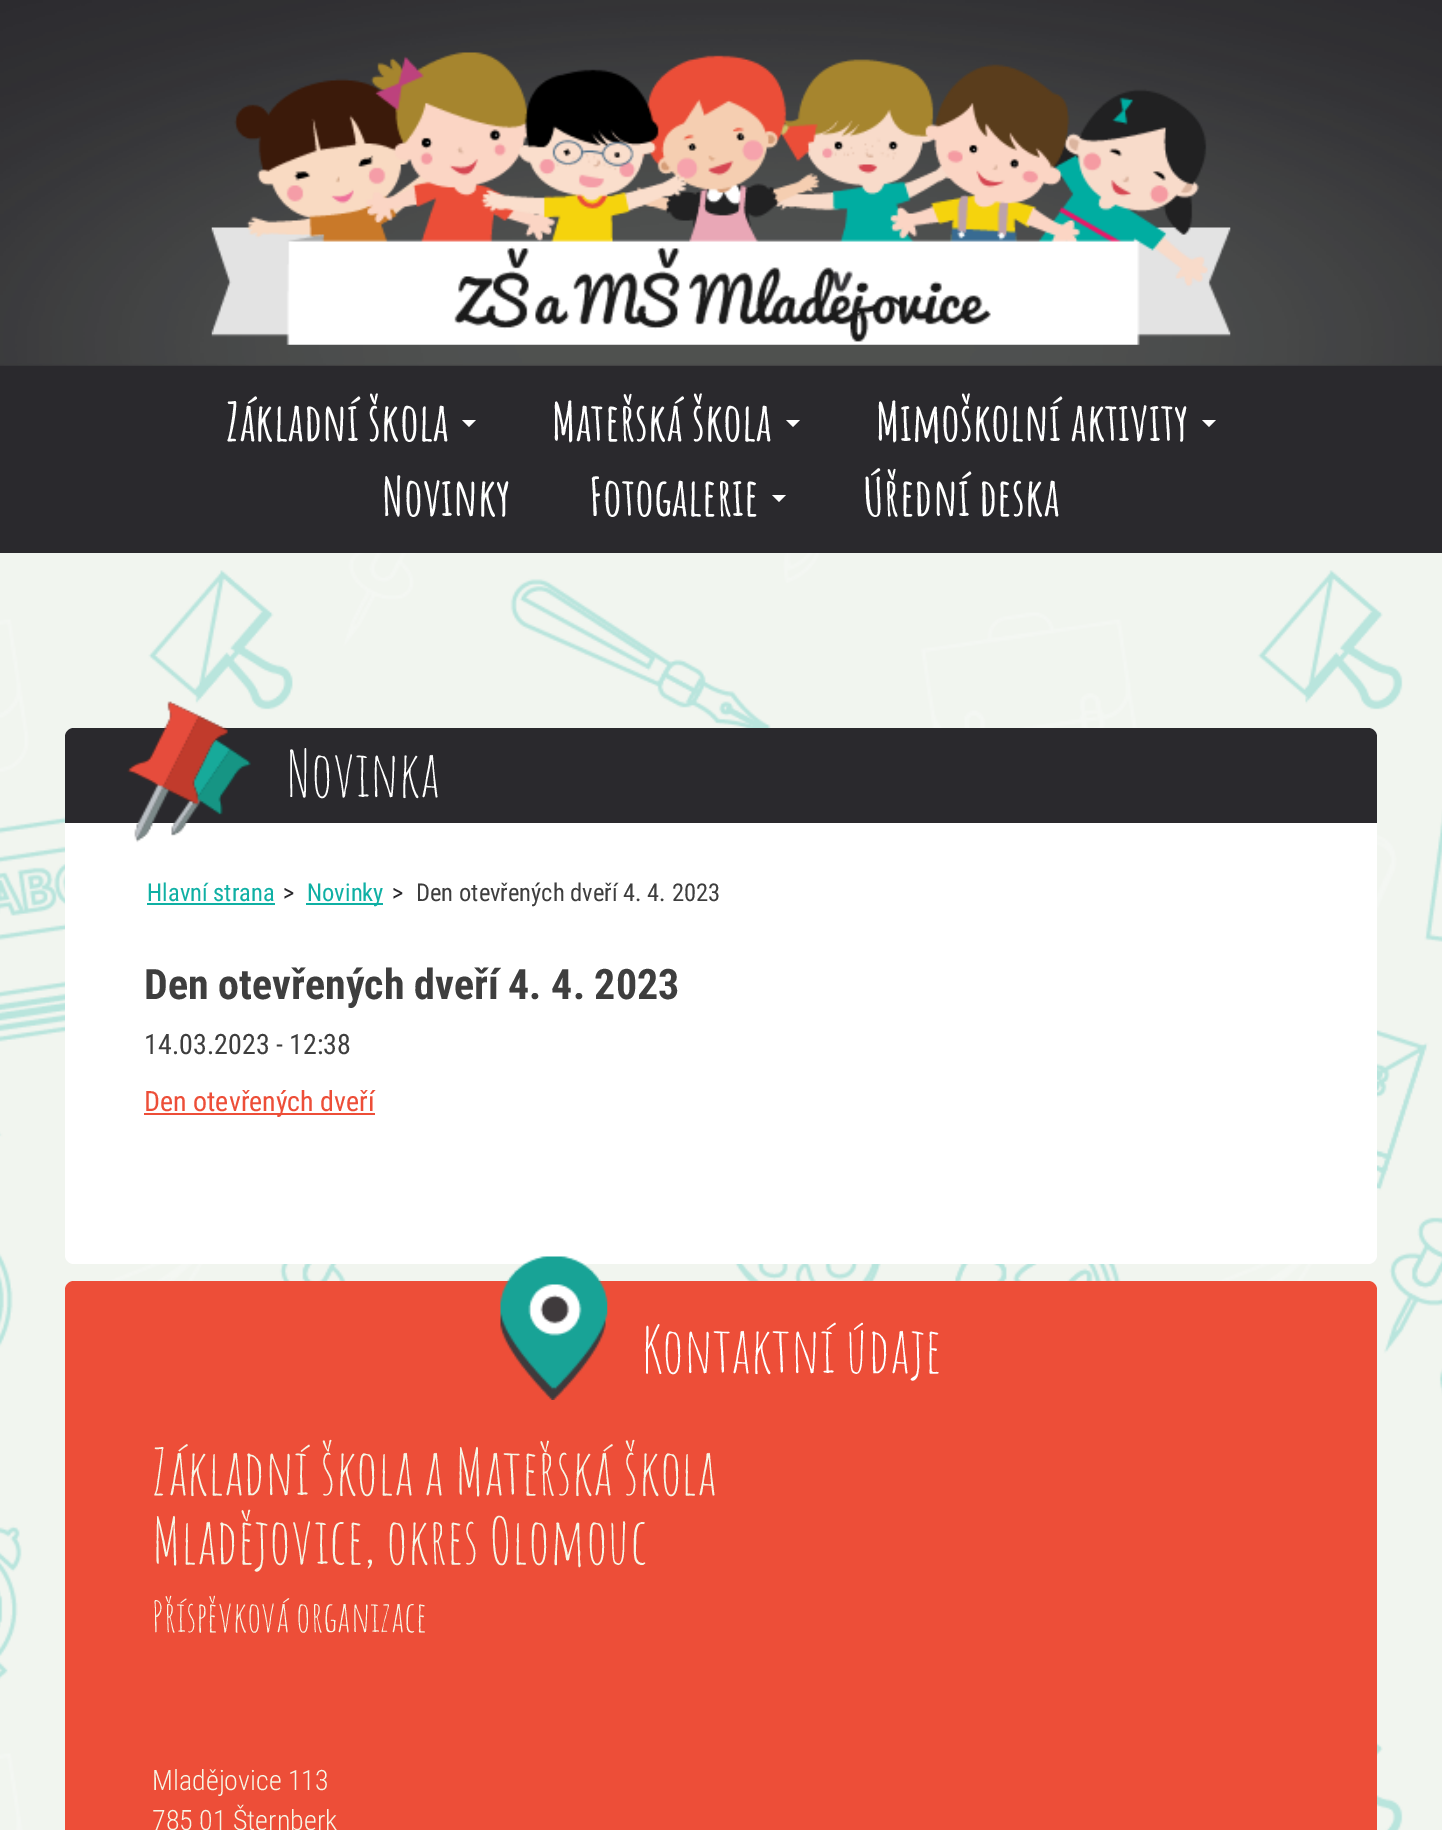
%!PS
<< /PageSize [1442 1830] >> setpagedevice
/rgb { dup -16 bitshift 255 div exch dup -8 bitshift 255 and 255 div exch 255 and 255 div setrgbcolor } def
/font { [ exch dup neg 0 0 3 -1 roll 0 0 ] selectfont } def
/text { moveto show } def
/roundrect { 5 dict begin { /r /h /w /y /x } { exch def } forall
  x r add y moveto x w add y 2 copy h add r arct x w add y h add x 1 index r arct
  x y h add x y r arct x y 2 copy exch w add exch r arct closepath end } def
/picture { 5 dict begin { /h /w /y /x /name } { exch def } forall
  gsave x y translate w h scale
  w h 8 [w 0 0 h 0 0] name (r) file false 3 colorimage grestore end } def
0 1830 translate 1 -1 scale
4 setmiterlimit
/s1 { /AmaticSC-Bold 52.5 font 16#FFFFFF rgb } def
/s2 { /AmaticSC-Regular 63 font 16#FFFFFF rgb } def
/s3 { /RobotoCondensed-Regular 24.5 font 16#0FB0A4 rgb } def
/s4 { /RobotoCondensed-Regular 24.5 font 16#2A292D rgb } def
/s5 { /RobotoCondensed-Regular 24.5 font 16#3E3E3E rgb } def
/s6 { /RobotoCondensed-Bold 42 font 16#3E3E3E rgb } def
/s7 { /RobotoCondensed-Regular 28 font 16#3E3E3E rgb } def
/s8 { /RobotoCondensed-Regular 28 font 16#ED4E38 rgb } def
/s9 { /AmaticSC-Regular 63 font 16#F7F6E6 rgb } def
/s10 { /AmaticSC-Regular 42 font 16#F7F6E6 rgb } def
/s11 { /RobotoCondensed-Light 28 font 16#F7F6E6 rgb } def
16#FFFFFF rgb
0 0 1442 1830 rectfill
(pic1.raw) 0 553 1442 1277 picture
16#2A292D rgb
0 0 1442 553 rectfill
(pic2.raw) 0 0 1442 366 picture
(pic3.raw) 211 52 1020 293 picture
s1
(Základní škola) 226 441 text
462 420 moveto 476 420 lineto 469 427 lineto closepath fill
(Mateřská škola) 552 441 text
786 420 moveto 800 420 lineto 793 427 lineto closepath fill
(Mimoškolní aktivity) 876 441 text
1202 420 moveto 1216 420 lineto 1209 427 lineto closepath fill
(Novinky) 382 516 text
(Fotogalerie) 589 516 text
772 495 moveto 786 495 lineto 779 502 lineto closepath fill
(Úřední deska) 863 516 text
65 728 1312 536 9 roundrect fill
16#2A292D rgb
74 728 moveto 1368 728 lineto 1373 728 1377 732 1377 737 curveto 1377 823 lineto 65 823 lineto 65 737 lineto 65 732 69 728 74 728 curveto closepath fill
(pic4.raw) 127 701 124 142 picture
s2
(Novinka) 287 797 text
s3
(Hlavní strana) 147 901 text
147 903 128 2 rectfill
s4
(>) 283 901 text
16#0FB0A4 rgb
306 903 77 2 rectfill
(Novinky) 307 901 text
s4
(>) 392 901 text
s5
(Den otevřených dveří 4. 4. 2023) 416 901 text
s6
(Den otevřených dveří 4. 4. 2023) 144 999 text
s7
(14.03.2023 - 12:38) 144 1054 text
16#ED4E38 rgb
144 1113 231 2 rectfill
(Den otevřených dveří) 144 1111 text
74 1281 moveto 1368 1281 lineto 1373 1281 1377 1285 1377 1290 curveto 1377 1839 lineto 65 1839 lineto 65 1290 lineto 65 1285 69 1281 74 1281 curveto closepath fill
(pic5.raw) 500 1256 108 144 picture
s2
(Kontaktní údaje) 642 1373 text
s9
(Základní škola a Mateřská škola) 152 1495 text
(Mladějovice, okres Olomouc) 152 1564 text
s10
(Příspěvková organizace) 152 1632 text
s11
(Mladějovice 113) 152 1790 text
(785 01 Šternberk) 152 1830 text
showpage
